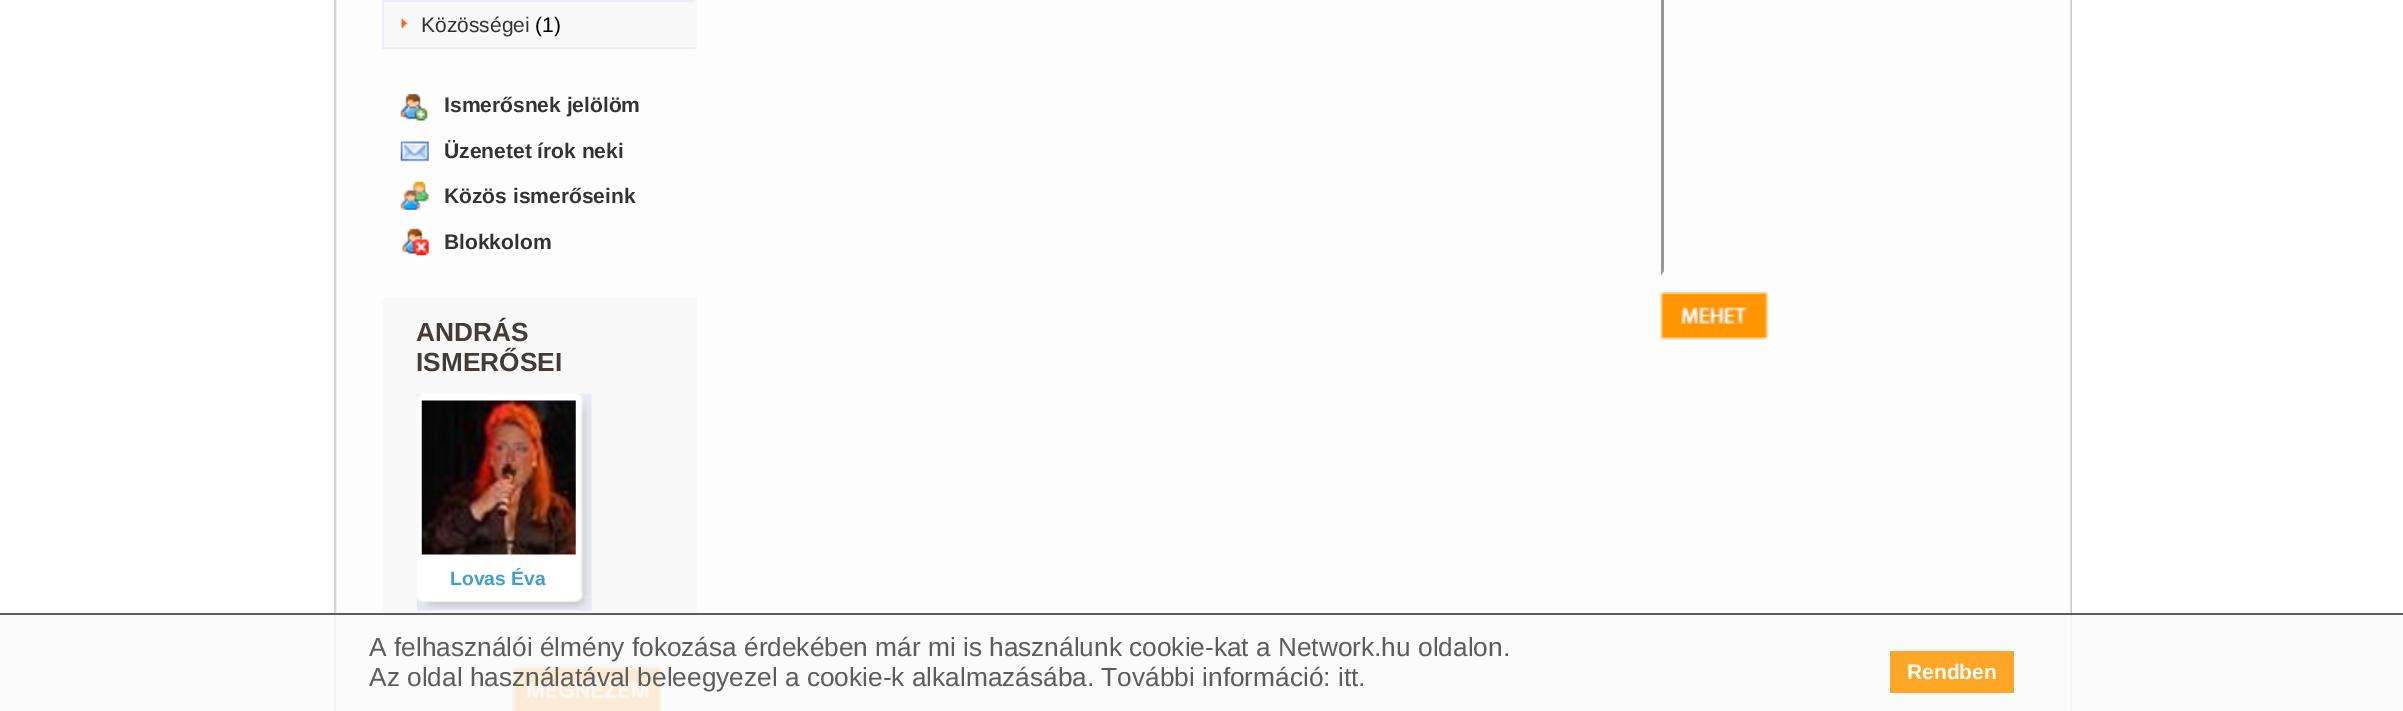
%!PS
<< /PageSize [2403 711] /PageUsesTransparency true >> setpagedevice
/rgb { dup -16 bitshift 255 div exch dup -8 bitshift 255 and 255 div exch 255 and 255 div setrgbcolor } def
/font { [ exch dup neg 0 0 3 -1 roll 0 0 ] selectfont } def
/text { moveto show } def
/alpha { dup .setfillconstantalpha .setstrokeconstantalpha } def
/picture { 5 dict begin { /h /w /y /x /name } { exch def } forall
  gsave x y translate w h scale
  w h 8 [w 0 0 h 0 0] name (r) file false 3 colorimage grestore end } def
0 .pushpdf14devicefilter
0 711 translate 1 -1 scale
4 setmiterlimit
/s1 { /LiberationSans-Regular 21 font 16#333333 rgb } def
/s2 { /LiberationSans-Regular 21 font 16#000000 rgb } def
/s3 { /LiberationSans-Bold 21 font 16#333333 rgb } def
/s4 { /LiberationSans-Bold 26.25 font 16#453B36 rgb } def
/s5 { /LiberationSans-Bold 19.25 font 16#409FCF rgb } def
/s6 { /LiberationSans-Regular 26.25 font 16#5C5C5C rgb } def
/s7 { /LiberationSans-Bold 21 font 16#FFFFFF rgb } def
16#FFFFFF rgb
0 0 2403 711 rectfill
(pic1.raw) 334 0 1738 711 picture
16#F8F8F8 rgb
384 0 313 49 rectfill
16#ECEEF7 rgb
382 0 2 49 rectfill
383 0 312 2 rectfill
(pic2.raw) 401 18 7 11 picture
383 47 312 2 rectfill
s1
(Közösségei) 421 32 text
s2
(\(1\)) 535 32 text
(pic3.raw) 400 94 28 27 picture
s3
(Ismerősnek jelölöm) 444 112 text
(pic4.raw) 400 141 29 21 picture
(Üzenetet írok neki) 444 158 text
(pic5.raw) 400 181 29 29 picture
(Közös ismerőseink) 444 203 text
(pic6.raw) 402 228 27 28 picture
(Blokkolom) 444 249 text
16#F8F8F8 rgb
382 298 315 413 rectfill
s4
(ANDRÁS) 416 341 text
(ISMERŐSEI) 416 371 text
(pic7.raw) 416 393 176 218 picture
(pic8.raw) 421 400 155 155 picture
s5
(Lovas Éva) 450 585 text
(pic9.raw) 416 596 176 15 picture
(pic10.raw) 512 666 150 45 picture
16#979797 rgb
1661 275 moveto 1661 -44 lineto 1664 -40 lineto 1664 271 lineto closepath fill
16#F0F0F0 rgb
1661 292 107 48 rectfill
(pic11.raw) 1660 292 108 48 picture
0.85 alpha
16#FAFAFA rgb
0 613 2403 98 rectfill
16#404040 rgb
0 613 2403 2 rectfill
1 alpha
s6
(A felhasználói élmény fokozása érdekében már mi is használunk cookie-kat a Network.hu oldalon.) 369 656 text
(Az oldal használatával beleegyezel a cookie-k alkalmazásába. További információ:) 369 686 text
(itt.) 1338 686 text
16#FFA626 rgb
1890 651 124 42 rectfill
s7
(Rendben) 1907 679 text
.poppdf14devicefilter showpage
